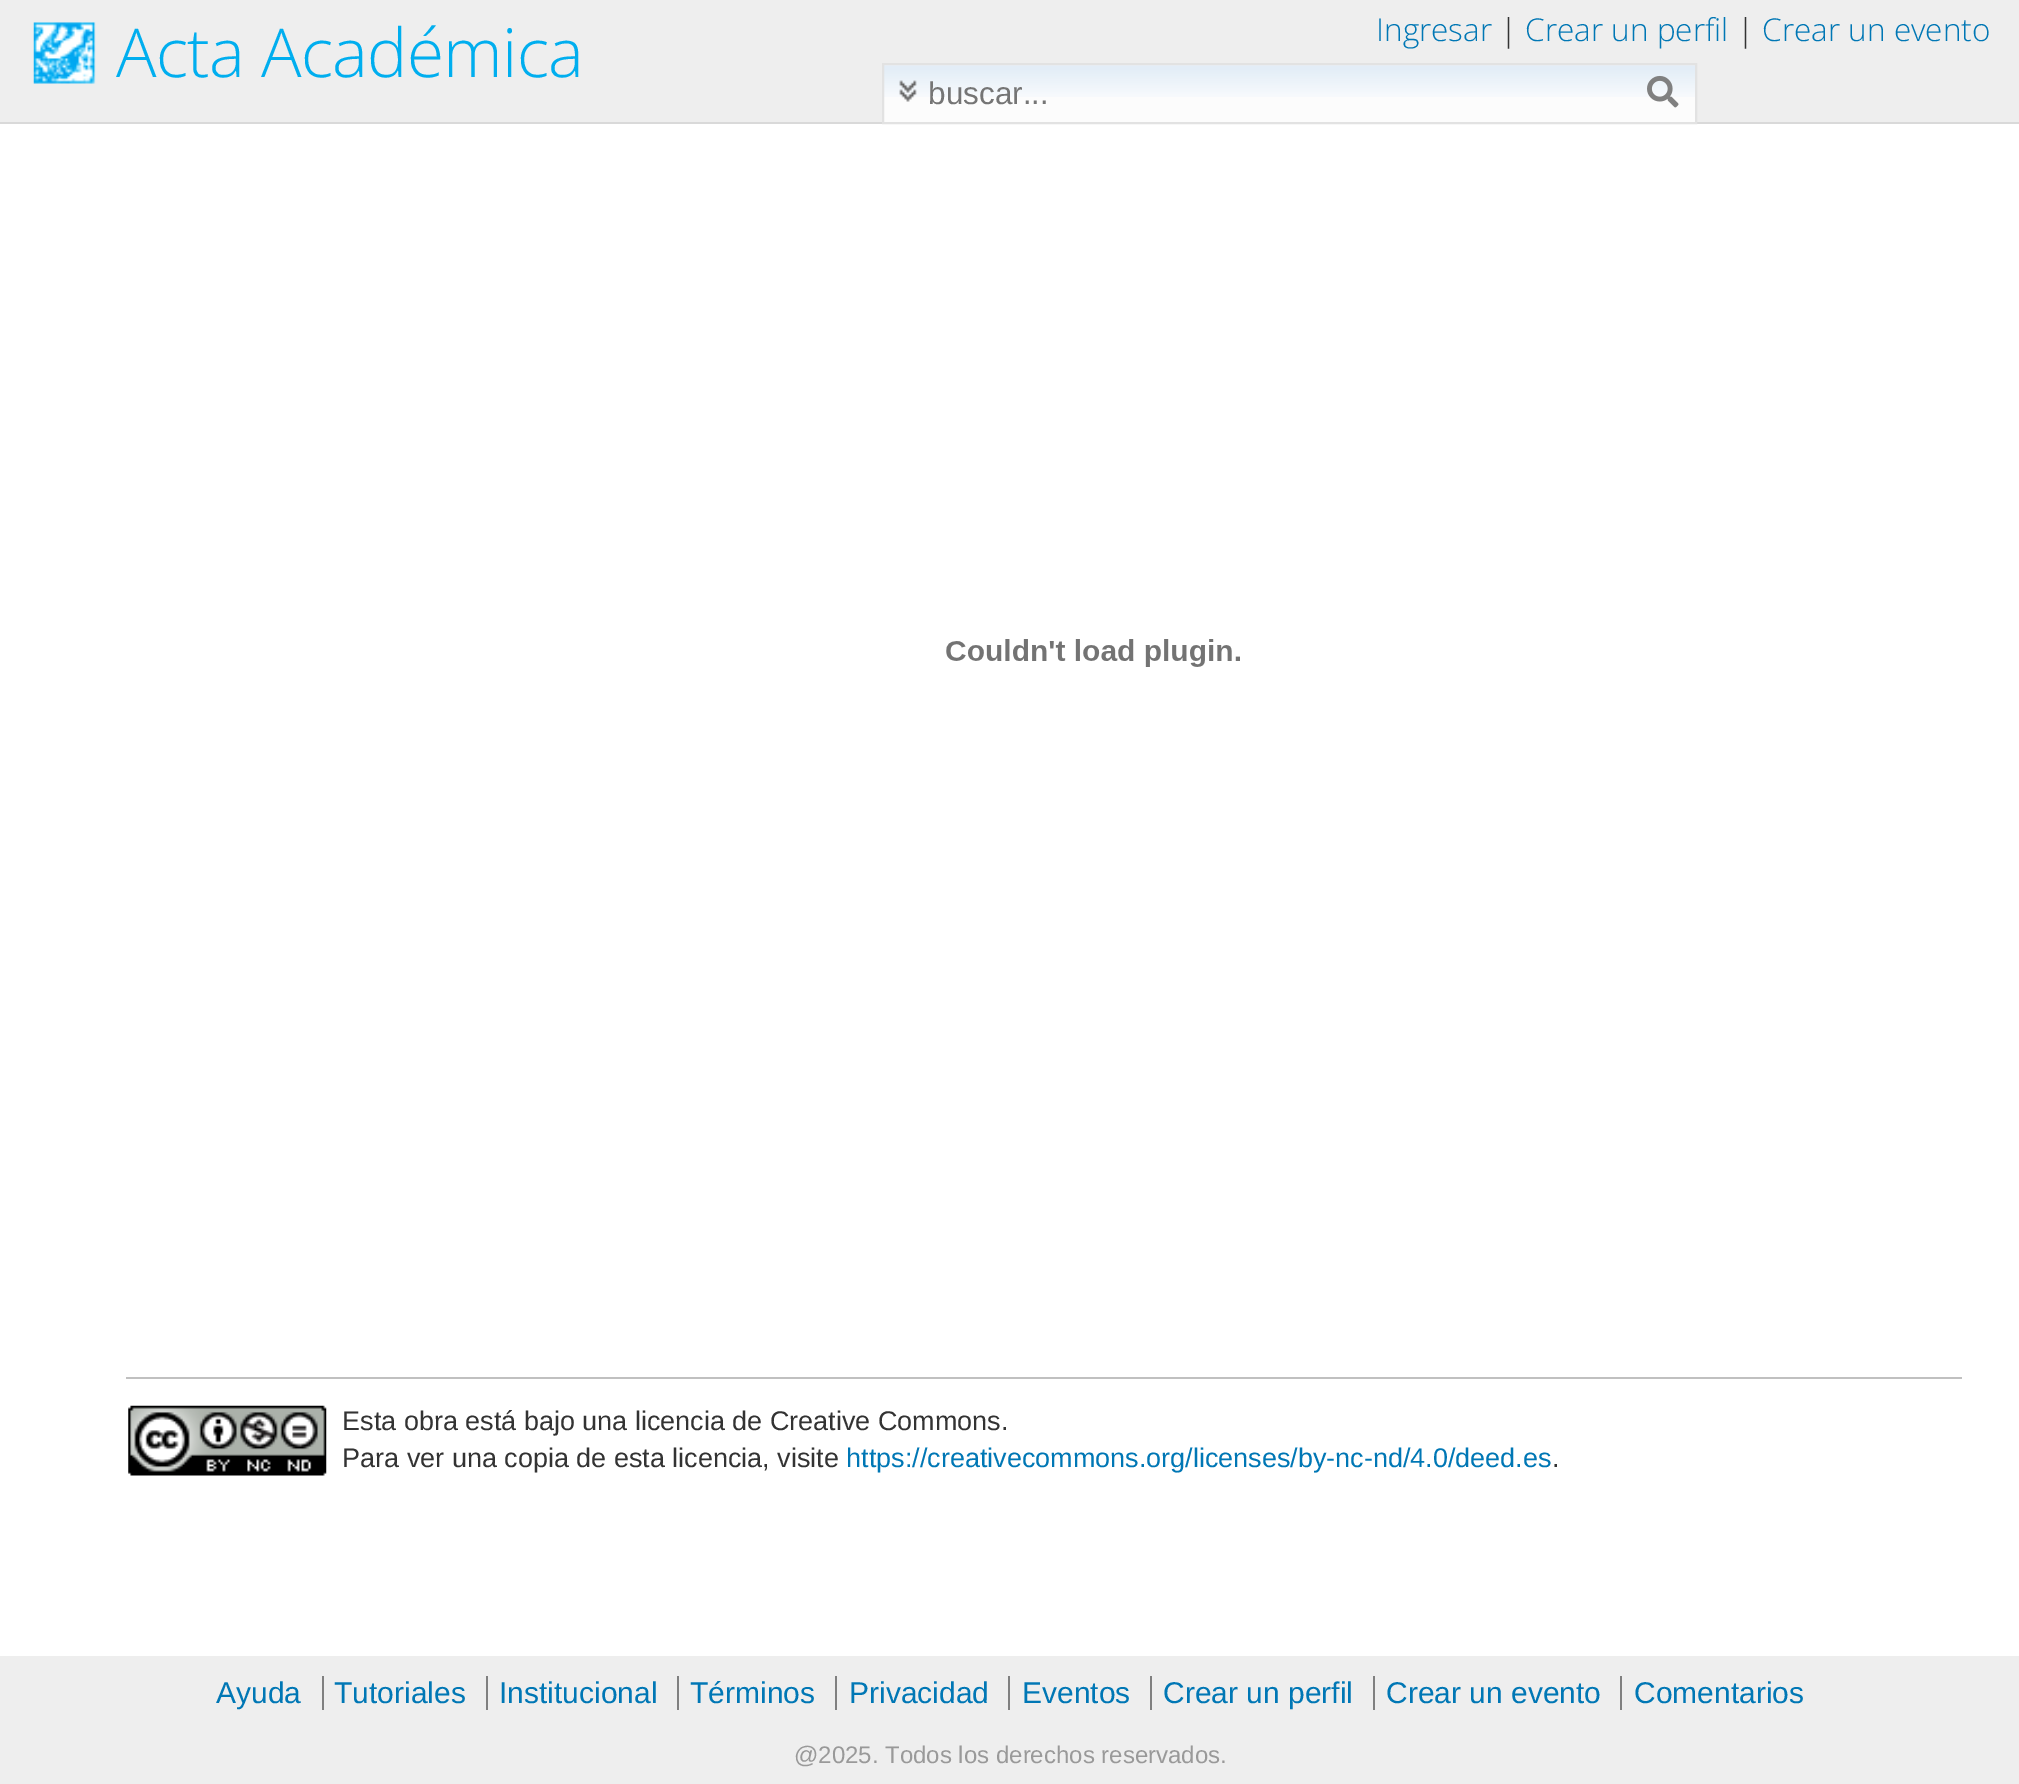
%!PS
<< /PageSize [2019 1784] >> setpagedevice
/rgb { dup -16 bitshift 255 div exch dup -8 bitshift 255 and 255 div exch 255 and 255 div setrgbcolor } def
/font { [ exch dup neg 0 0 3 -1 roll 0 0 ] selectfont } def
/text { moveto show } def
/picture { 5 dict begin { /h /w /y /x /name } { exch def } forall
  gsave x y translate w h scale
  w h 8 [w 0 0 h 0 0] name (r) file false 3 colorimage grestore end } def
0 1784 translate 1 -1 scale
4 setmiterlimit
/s1 { /OpenSans-Light 31.5 font 16#0077B5 rgb } def
/s2 { /OpenSans-Light 31.5 font 16#333333 rgb } def
/s3 { /LiberationSans-Regular 31.5 font 16#757575 rgb } def
/s4 { /LiberationSans-Regular 27 font 16#333333 rgb } def
/s5 { /LiberationSans-Regular 27 font 16#0077B5 rgb } def
/s6 { /LiberationSans-Regular 30 font 16#0077B5 rgb } def
/s7 { /LiberationSans-Regular 24 font 16#999999 rgb } def
16#FFFFFF rgb
0 0 2019 1784 rectfill
16#D9D9D9 rgb
0 122 2019 2 rectfill
16#EEEEEE rgb
0 0 2019 122 rectfill
(pic1.raw) 33 22 63 62 picture
/OpenSans-Light 67.5 font
16#00AEEF rgb
116 77 moveto -0.7 0 (Acta Académica) ashow
s1
(Ingresar) 1376 41 text
s2
(|) 1500 41 text
s1
(Crear un perfil) 1525 41 text
s2
(|) 1737 41 text
s1
(Crear un evento) 1762 41 text
16#FCFCFC rgb
884 65 811 57 rectfill
(pic3.raw) 884 65 811 32 picture
16#E2E2E2 rgb
2 setlinewidth
883 64 813 59 rectstroke
(pic2.raw) 899 80 18 22 picture
s3
(buscar...) 928 104 text
(pic4.raw) 1647 75 32 33 picture
(pic5.raw) 946 639 294 28 picture
16#C0C0C0 rgb
126 1377 1836 2 rectfill
(pic6.raw) 128 1405 199 71 picture
s4
(Esta obra está bajo una licencia de Creative Commons.) 342 1430 text
(Para ver una copia de esta licencia, visite) 342 1467 text
s5
(https://creativecommons.org/licenses/by-nc-nd/4.0/deed.es) 846 1467 text
s4
(.) 1552 1467 text
16#EEEEEE rgb
0 1656 2019 128 rectfill
s6
(Ayuda) 216 1703 text
(Tutoriales) 334 1703 text
16#808080 rgb
322 1676 2 34 rectfill
s6
(Institucional) 499 1703 text
16#808080 rgb
486 1676 2 34 rectfill
s6
(Términos) 690 1703 text
16#808080 rgb
677 1676 2 34 rectfill
s6
(Privacidad) 849 1703 text
16#808080 rgb
835 1676 2 34 rectfill
s6
(Eventos) 1022 1703 text
16#808080 rgb
1008 1676 2 34 rectfill
s6
(Crear un perfil) 1163 1703 text
16#808080 rgb
1150 1676 2 34 rectfill
s6
(Crear un evento) 1386 1703 text
16#808080 rgb
1373 1676 2 34 rectfill
s6
(Comentarios) 1634 1703 text
16#808080 rgb
1620 1676 2 34 rectfill
s7
(@2025. Todos los derechos reservados.) 794 1763 text
showpage
